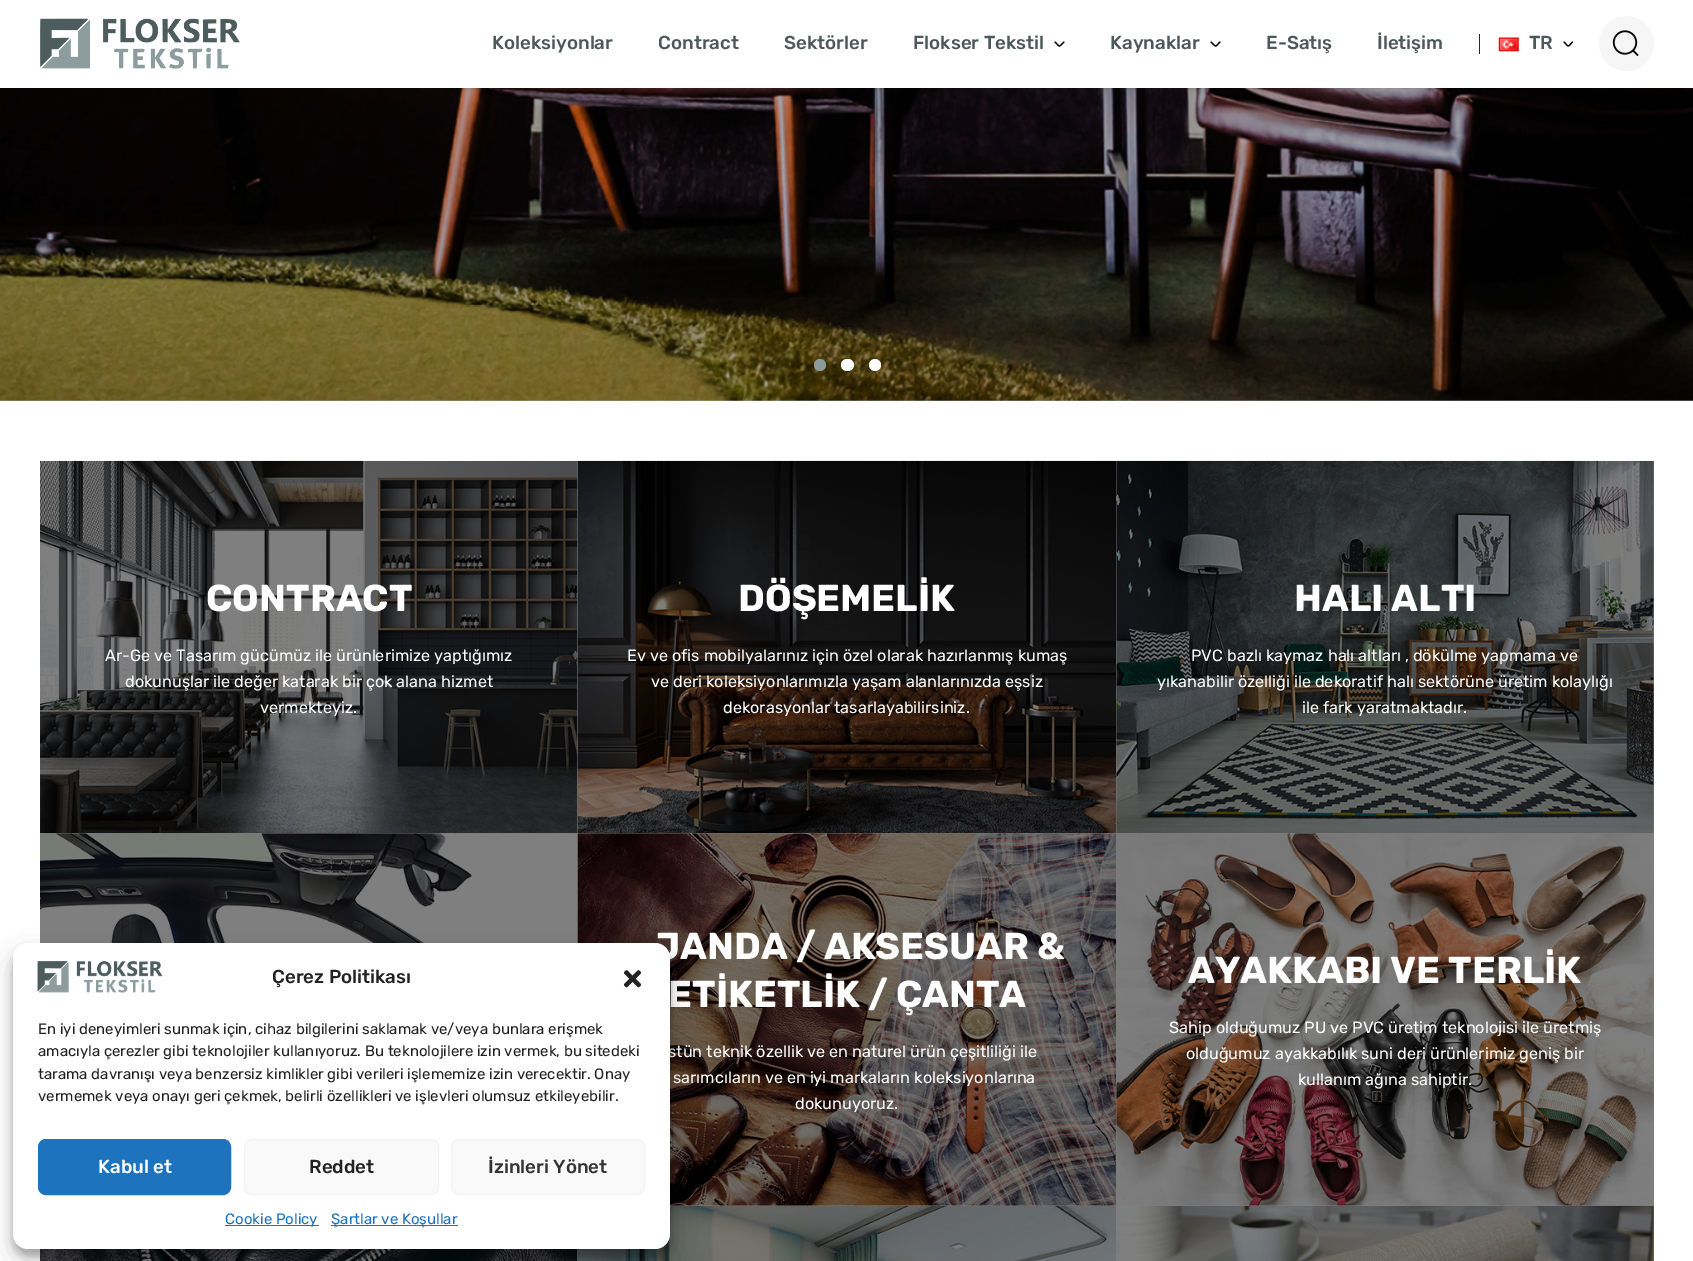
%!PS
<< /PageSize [1693 1261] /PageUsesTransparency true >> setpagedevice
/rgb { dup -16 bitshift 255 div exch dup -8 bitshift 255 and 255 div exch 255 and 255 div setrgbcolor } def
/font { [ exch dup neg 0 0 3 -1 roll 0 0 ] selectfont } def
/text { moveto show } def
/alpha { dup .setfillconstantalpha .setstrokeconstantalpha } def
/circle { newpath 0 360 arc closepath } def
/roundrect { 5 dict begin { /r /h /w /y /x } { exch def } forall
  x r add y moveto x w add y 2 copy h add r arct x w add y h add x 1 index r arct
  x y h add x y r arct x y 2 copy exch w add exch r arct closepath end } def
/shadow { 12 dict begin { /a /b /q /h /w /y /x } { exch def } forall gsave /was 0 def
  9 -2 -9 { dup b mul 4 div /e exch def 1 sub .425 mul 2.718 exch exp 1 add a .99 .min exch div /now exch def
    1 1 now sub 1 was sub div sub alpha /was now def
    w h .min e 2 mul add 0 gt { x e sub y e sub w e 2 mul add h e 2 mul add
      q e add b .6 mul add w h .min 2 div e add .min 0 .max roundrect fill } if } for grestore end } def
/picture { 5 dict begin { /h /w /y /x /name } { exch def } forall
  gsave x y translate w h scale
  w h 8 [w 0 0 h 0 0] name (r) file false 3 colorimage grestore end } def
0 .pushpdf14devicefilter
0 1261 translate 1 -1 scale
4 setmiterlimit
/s1 { /Rubik-Medium 18.75 font 16#4D585A rgb } def
/s2 { /Rubik-Bold 37.5 font 16#FFFFFF rgb } def
/s3 { /Rubik-Regular 16.25 font 16#FFFFFF rgb } def
/s4 { /Rubik-Medium 18.75 font 16#222222 rgb } def
/s5 { /Rubik-Regular 15 font 16#222222 rgb } def
/s6 { /Rubik-Medium 18.75 font 16#FFFFFF rgb } def
/s7 { /Rubik-Medium 18.75 font 16#333333 rgb } def
/s8 { /Rubik-Regular 15 font 16#1E73BE rgb } def
16#FFFFFF rgb
0 0 1693 1261 rectfill
16#808080 rgb
1116 1206 538 55 rectfill
16#B3B3B3 rgb
0 400 1693 1 rectfill
(pic4.raw) 0 88 1693 313 picture
16#000000 rgb
1 1 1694 88 0 2.5 0.15 shadow
16#FFFFFF rgb
0 0 1693 88 rectfill
(pic1.raw) 40 18 200 51 picture
s1
(Koleksiyonlar) 492 49 text
(Contract) 658 49 text
(Sektörler) 784 49 text
(Flokser Tekstil) 913 49 text
16#000000 rgb
1.2 setlinewidth
1 setlinecap
1 setlinejoin
1064 42 moveto 1058 47.5 1060.5 47.5 1055 42 curveto stroke
s1
(Kaynaklar) 1110 49 text
16#000000 rgb
1220 42 moveto 1214.5 47.5 1217 47.5 1211 42 curveto stroke
s1
(E-Satış) 1266 49 text
(İletişim) 1377 49 text
16#282828 rgb
1479 34 1 20 rectfill
(pic2.raw) 1498 37 21 15 picture
s1
(TR) 1529 49 text
16#000000 rgb
1572.5 42 moveto 1567 47.5 1569.5 47.5 1564 42 curveto stroke
16#F6F6F6 rgb
1626.5 43.5 27.5 circle fill
(pic3.raw) 1612 30 27 26 picture
16#8C9C9C rgb
820 365 6 circle fill
16#FFFFFF rgb
841 359 13 12 6 roundrect fill
875 365 6 circle fill
(pic5.raw) 40 460 538 374 picture
(pic6.raw) 577 460 540 374 picture
(pic8.raw) 40 833 538 110 picture
(pic7.raw) 1116 460 538 374 picture
(pic9.raw) 577 833 540 373 picture
0.5 alpha
16#000000 rgb
40 461 538 373 rectfill
1 alpha
s2
(CONTRACT) 206 611 text
s3
(Ar-Ge ve Tasarım gücümüz ile ürünlerimize yaptığımız) 105 661 text
(dokunuşlar ile değer katarak bir çok alana hizmet) 125 687 text
(vermekteyiz.) 260 713 text
0.5 alpha
16#000000 rgb
578 461 538 373 rectfill
1 alpha
s2
(DÖŞEMELİK) 738 611 text
s3
(Ev ve ofis mobilyalarınız için özel olarak hazırlanmış kumaş) 627 661 text
(ve deri koleksiyonlarımızla yaşam alanlarınızda eşsiz) 651 687 text
(dekorasyonlar tasarlayabilirsiniz.) 723 713 text
(pic10.raw) 1116 833 538 373 picture
0.5 alpha
16#000000 rgb
1116 461 538 373 rectfill
1 alpha
s2
(HALI ALTI) 1294 611 text
s3
(PVC bazlı kaymaz halı altları , dökülme yapmama ve) 1191 661 text
(yıkanabilir özelliği ile dekoratif halı sektörüne üretim kolaylığı) 1157 687 text
(ile fark yaratmaktadır.) 1302 713 text
0.5 alpha
16#000000 rgb
40 834 538 109 rectfill
1 alpha
(pic11.raw) 40 1249 538 12 picture
(pic12.raw) 577 1205 539 56 picture
0.5 alpha
578 834 538 372 rectfill
1 alpha
s2
(JANDA / AKSESUAR &) 655 959 text
(ETİKETLİK / ÇANTA) 668 1007 text
s3
(stün teknik özellik ve en naturel ürün çeşitliliği ile) 668 1057 text
(sarımcıların ve en iyi markaların koleksiyonlarına) 673 1083 text
(dokunuyoruz.) 795 1109 text
(pic13.raw) 1116 1205 538 56 picture
0.5 alpha
16#000000 rgb
1116 834 538 372 rectfill
1 alpha
s2
(AYAKKABI VE TERLİK) 1188 983 text
s3
(Sahip olduğumuz PU ve PVC üretim teknolojisi ile üretmiş) 1169 1033 text
(olduğumuz ayakkabılık suni deri ürünlerimiz geniş bir) 1186 1059 text
(kullanım ağına sahiptir.) 1298 1085 text
0.5 alpha
16#000000 rgb
40 1249 538 12 rectfill
1 alpha
13 950 657 306 15 4 0.23 shadow
13 955 657 306 15 12.5 0.19 shadow
16#FFFFFF rgb
13 943 657 306 15 roundrect fill
(pic14.raw) 37 961 126 32 picture
s4
(Çerez Politikası) 272 983 text
(pic15.raw) 623 970 19 18 picture
s5
(En iyi deneyimleri sunmak için, cihaz bilgilerini saklamak ve/veya bunlara erişmek) 38 1034 text
(amacıyla çerezler gibi teknolojiler kullanıyoruz. Bu teknolojilere izin vermek, bu sitedeki) 38 1056 text
(tarama davranışı veya benzersiz kimlikler gibi verileri işlememize izin verecektir. Onay) 38 1079 text
(vermemek veya onayı geri çekmek, belirli özellikleri ve işlevleri olumsuz etkileyebilir.) 38 1101 text
16#1E73BE rgb
38.5 1139.5 192 55 7.5 roundrect gsave fill grestore
1 setlinewidth
0 setlinecap
0 setlinejoin
stroke
s6
(Kabul et) 98 1173 text
16#F9F9F9 rgb
244.5 1139.5 194 55 7.5 roundrect gsave fill grestore
16#F2F2F2 rgb
stroke
s4
(Reddet) 309 1173 text
16#F9F9F9 rgb
451.5 1139.5 193 55 7.5 roundrect gsave fill grestore
16#F2F2F2 rgb
stroke
s7
(İzinleri Yönet) 488 1173 text
16#1E73BE rgb
225 1225 94 1 rectfill
s8
(Cookie Policy) 225 1224 text
331 1225 127 1 rectfill
(Şartlar ve Koşullar) 331 1224 text
.poppdf14devicefilter showpage
